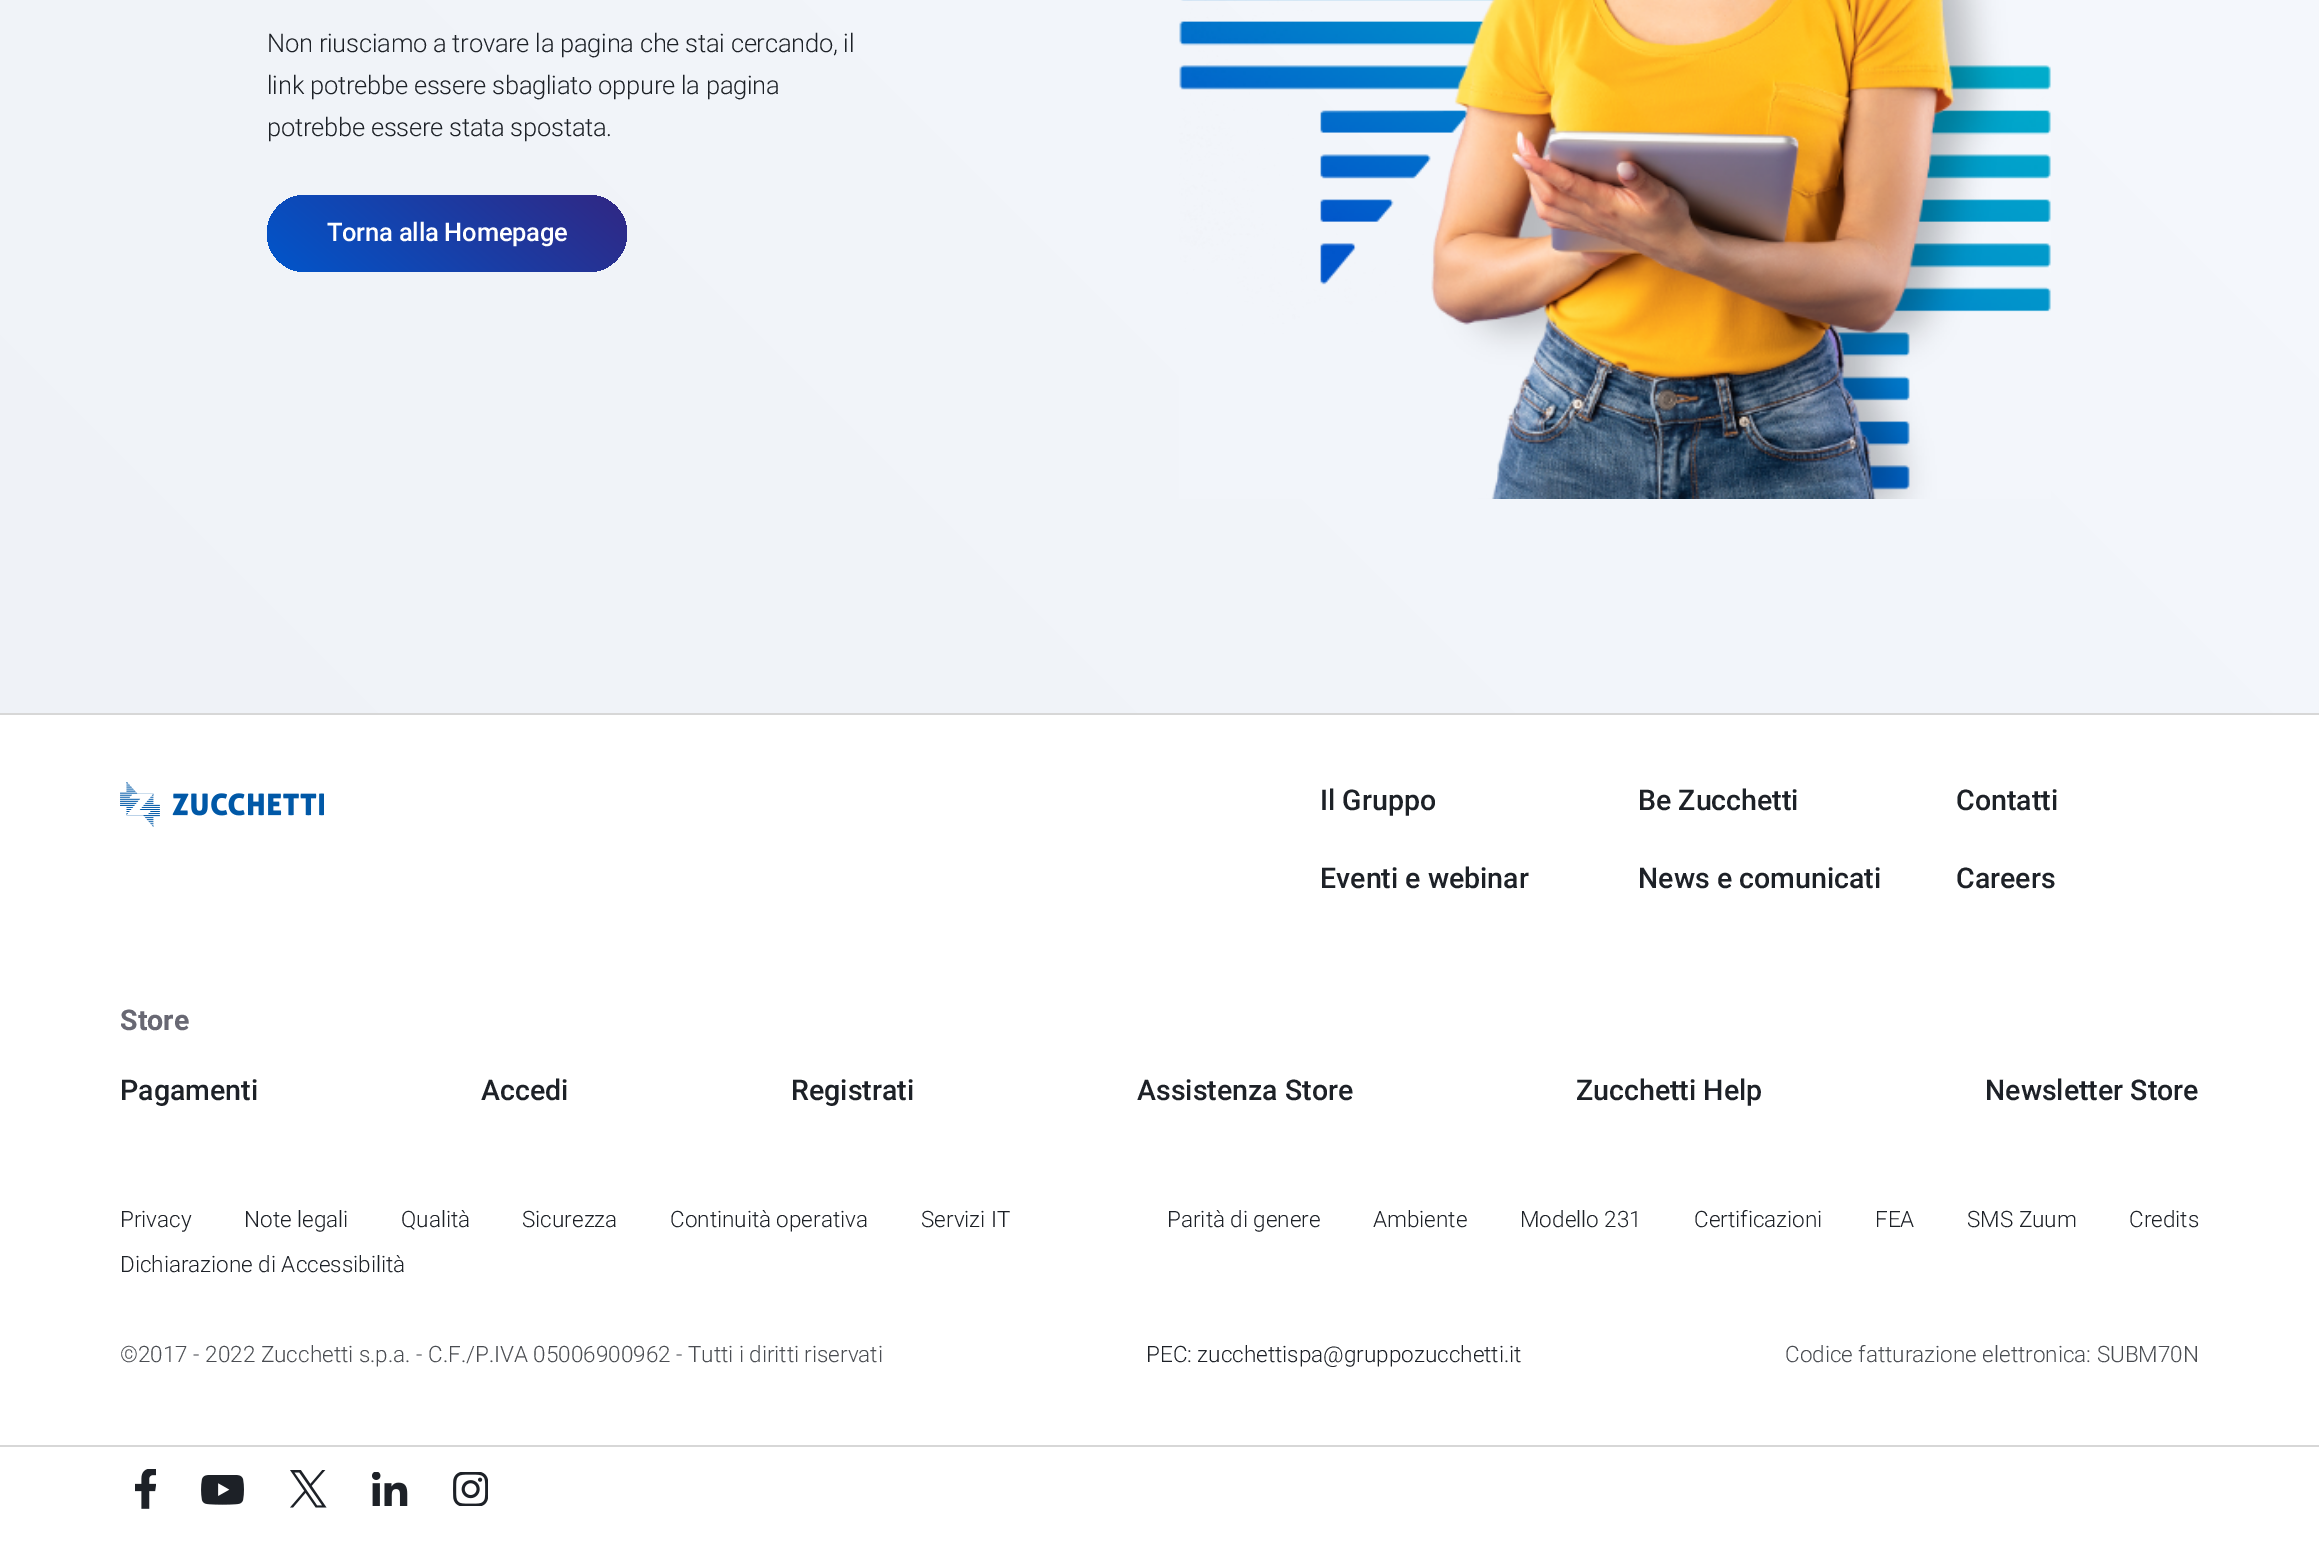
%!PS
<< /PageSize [2319 1553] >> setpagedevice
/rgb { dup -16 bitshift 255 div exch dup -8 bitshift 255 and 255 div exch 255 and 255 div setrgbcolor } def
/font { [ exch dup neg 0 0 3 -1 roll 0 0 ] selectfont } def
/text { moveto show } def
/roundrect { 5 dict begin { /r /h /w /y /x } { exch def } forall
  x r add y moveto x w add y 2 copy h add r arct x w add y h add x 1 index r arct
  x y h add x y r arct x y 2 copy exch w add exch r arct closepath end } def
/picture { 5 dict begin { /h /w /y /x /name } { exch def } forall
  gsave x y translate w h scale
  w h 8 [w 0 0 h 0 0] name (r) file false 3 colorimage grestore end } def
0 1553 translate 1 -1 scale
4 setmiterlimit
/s1 { /Roboto-Medium 28.5 font 16#1D2127 rgb } def
/s2 { /Roboto-Bold 28.5 font 16#686873 rgb } def
/s3 { /Roboto-Light 22.5 font 16#1D2127 rgb } def
/s4 { /Roboto-Light 22.5 font 16#4A4D52 rgb } def
16#FFFFFF rgb
0 0 2319 1553 rectfill
gsave 0 0 moveto 2319 0 lineto 2319 713 lineto 0 713 lineto closepath clip newpath
<< /ShadingType 2 /ColorSpace /DeviceRGB /Coords [191 904 2128 -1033] /Extend [true true] /Function << /FunctionType 2 /Domain [0 1] /C0 [0.937 0.949 0.969] /C1 [0.965 0.976 0.996] /N 1 >> >> shfill grestore
/Roboto-Light 25.5 font
16#1D2127 rgb
267 52 moveto -0.25 0 (Non riusciamo a trovare la pagina che stai cercando, il) ashow
267 94 moveto -0.25 0 (link potrebbe essere sbagliato oppure la pagina) ashow
267 136 moveto -0.25 0 (potrebbe essere stata spostata.) ashow
gsave 267 195 360 77 38.5 roundrect clip newpath
<< /ShadingType 2 /ColorSpace /DeviceRGB /Coords [354 344 540 122] /Extend [true true] /Function << /FunctionType 2 /Domain [0 1] /C0 [0.004 0.337 0.796] /C1 [0.192 0.153 0.514] /N 1 >> >> shfill grestore
/Roboto-Medium 25.5 font
16#FFFFFF rgb
327 241 moveto -0.25 0 (Torna alla Homepage) ashow
(pic1.raw) 1179 0 872 499 picture
16#D7D7D7 rgb
0 713 2319 2 rectfill
0 1445 2319 2 rectfill
(pic2.raw) 120 782 204 45 picture
s1
(Il Gruppo) 1320 810 text
(Be Zucchetti) 1638 810 text
(Contatti) 1956 810 text
(Eventi e webinar) 1320 888 text
(News e comunicati) 1638 888 text
(Careers) 1956 888 text
s2
(Store) 120 1030 text
s1
(Pagamenti) 120 1100 text
(Accedi) 481 1100 text
(Registrati) 791 1100 text
(Assistenza Store) 1137 1100 text
(Zucchetti Help) 1576 1100 text
(Newsletter Store) 1985 1100 text
s3
(Privacy) 120 1227 text
(Note legali) 244 1227 text
(Qualità) 401 1227 text
(Sicurezza) 522 1227 text
(Continuità operativa) 670 1227 text
(Servizi IT) 921 1227 text
(Parità di genere) 1167 1227 text
(Ambiente) 1373 1227 text
(Modello 231) 1520 1227 text
(Certificazioni) 1694 1227 text
(FEA) 1875 1227 text
(SMS Zuum) 1967 1227 text
(Credits) 2129 1227 text
(Dichiarazione di Accessibilità) 120 1272 text
s4
(©2017 - 2022 Zucchetti s.p.a. - C.F./P.IVA 05006900962 - Tutti i diritti riservati) 120 1362 text
s3
(PEC: zucchettispa@gruppozucchetti.it) 1146 1362 text
s4
(Codice fatturazione elettronica: SUBM70N) 1785 1362 text
(pic3.raw) 135 1469 21 40 picture
(pic4.raw) 201 1475 43 30 picture
(pic5.raw) 290 1470 37 38 picture
(pic6.raw) 372 1472 36 34 picture
(pic7.raw) 453 1472 35 34 picture
showpage
